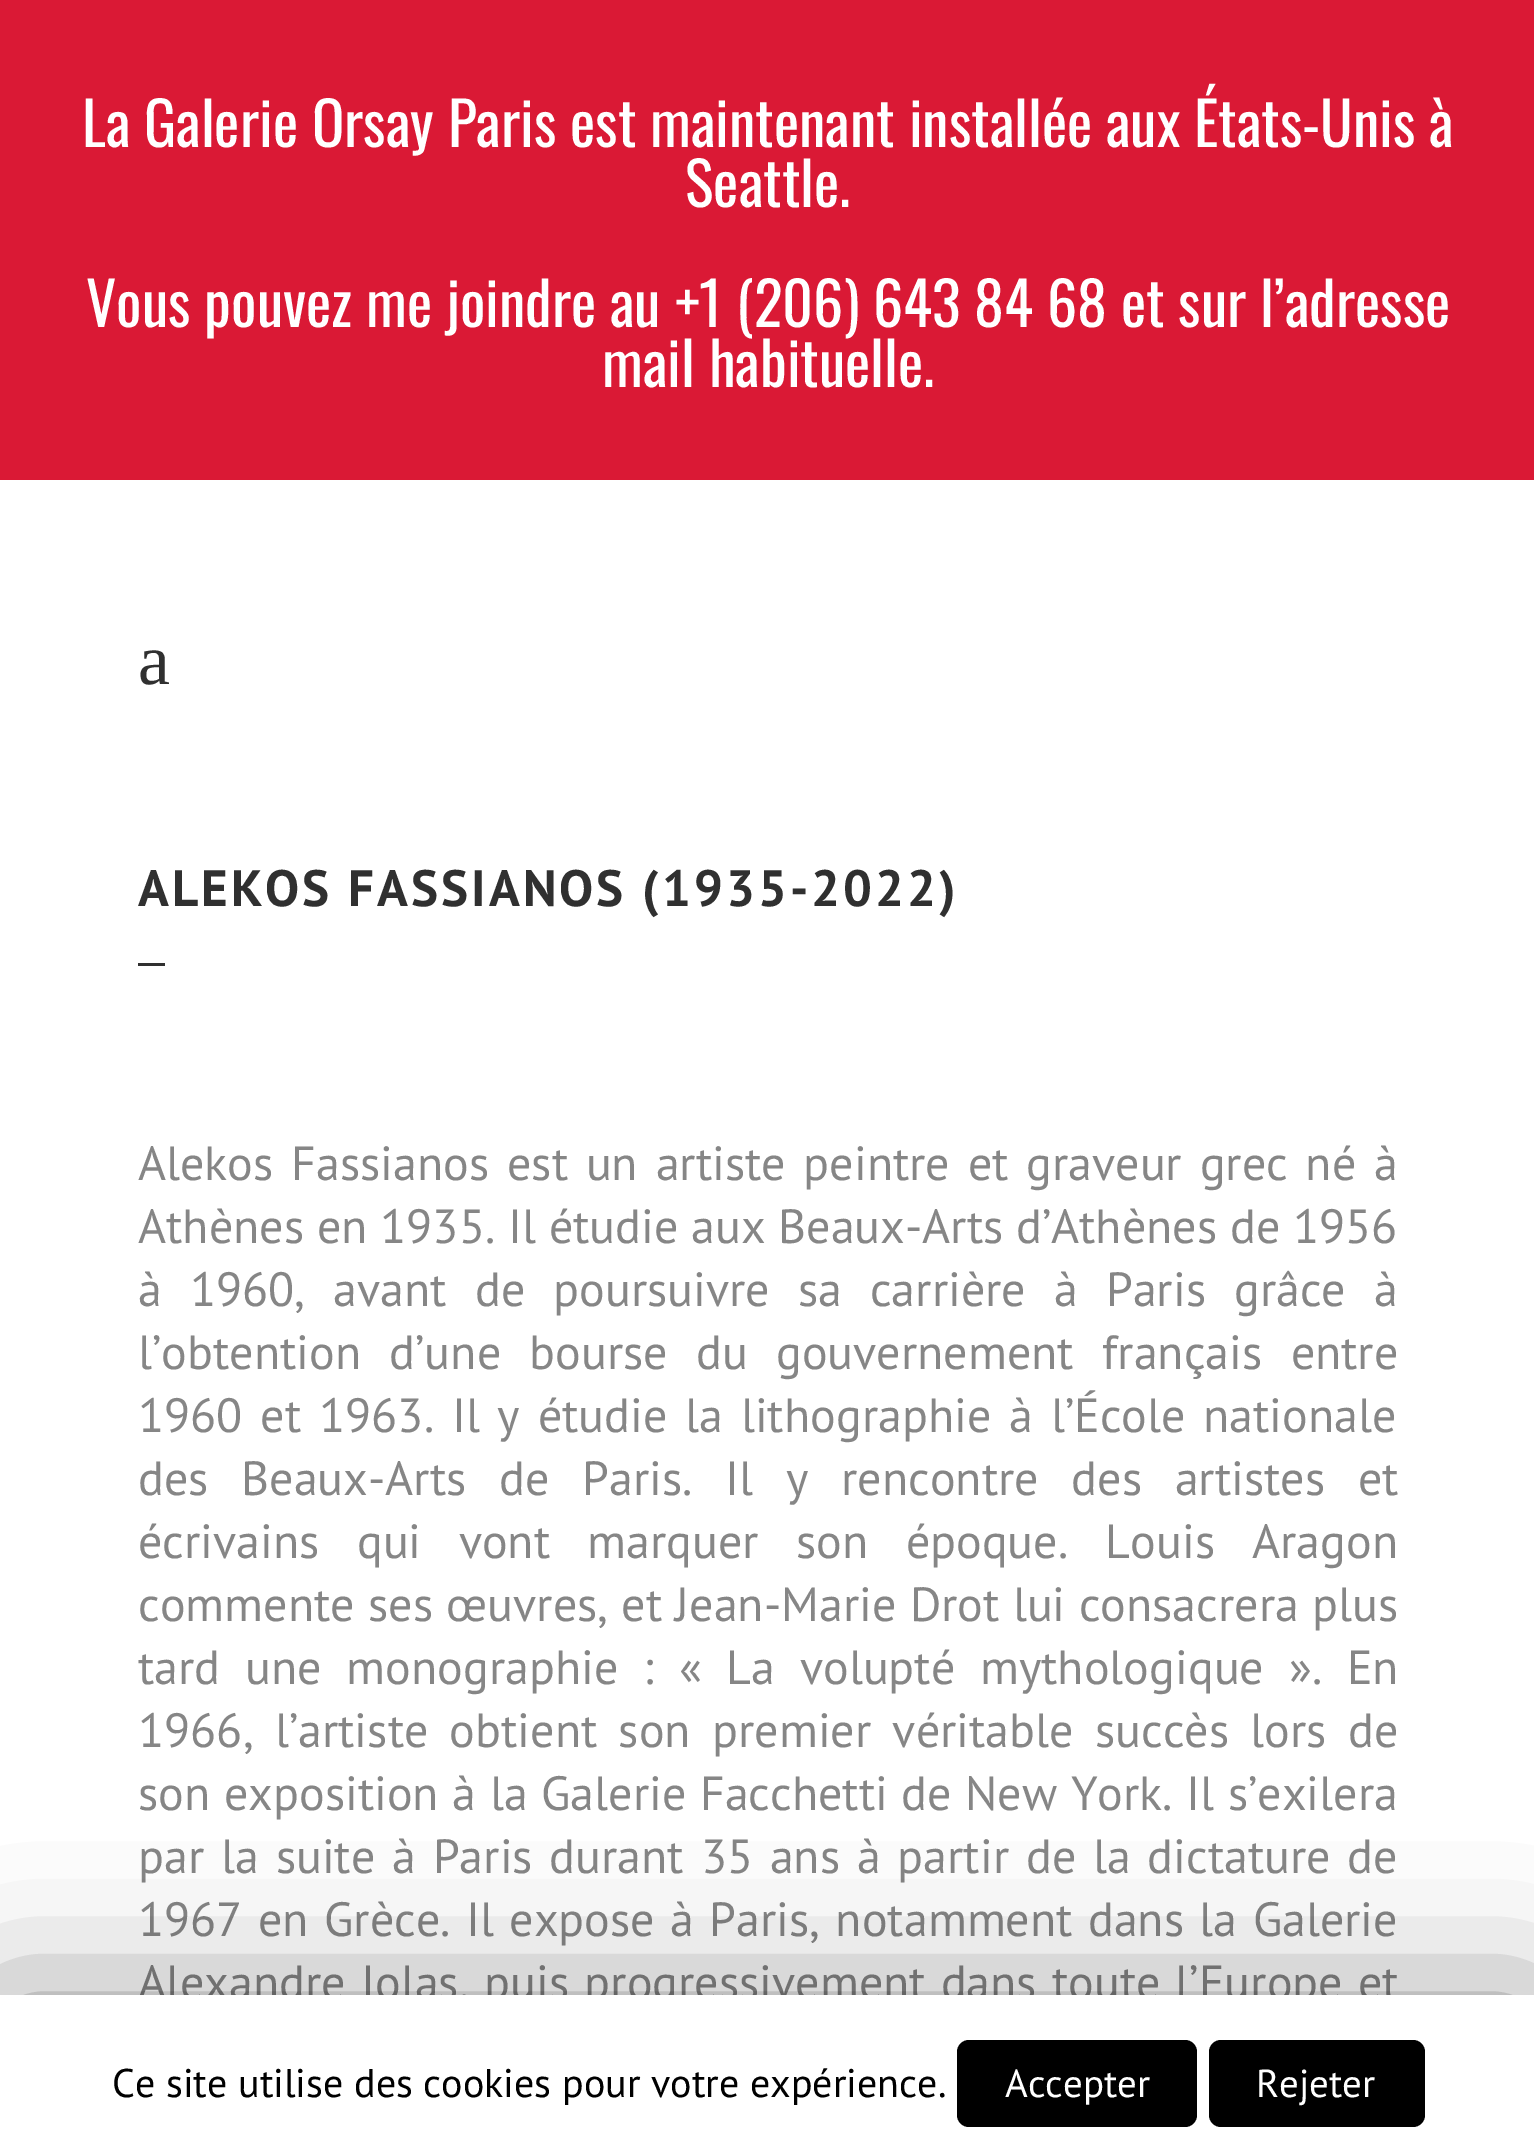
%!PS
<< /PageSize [1534 2155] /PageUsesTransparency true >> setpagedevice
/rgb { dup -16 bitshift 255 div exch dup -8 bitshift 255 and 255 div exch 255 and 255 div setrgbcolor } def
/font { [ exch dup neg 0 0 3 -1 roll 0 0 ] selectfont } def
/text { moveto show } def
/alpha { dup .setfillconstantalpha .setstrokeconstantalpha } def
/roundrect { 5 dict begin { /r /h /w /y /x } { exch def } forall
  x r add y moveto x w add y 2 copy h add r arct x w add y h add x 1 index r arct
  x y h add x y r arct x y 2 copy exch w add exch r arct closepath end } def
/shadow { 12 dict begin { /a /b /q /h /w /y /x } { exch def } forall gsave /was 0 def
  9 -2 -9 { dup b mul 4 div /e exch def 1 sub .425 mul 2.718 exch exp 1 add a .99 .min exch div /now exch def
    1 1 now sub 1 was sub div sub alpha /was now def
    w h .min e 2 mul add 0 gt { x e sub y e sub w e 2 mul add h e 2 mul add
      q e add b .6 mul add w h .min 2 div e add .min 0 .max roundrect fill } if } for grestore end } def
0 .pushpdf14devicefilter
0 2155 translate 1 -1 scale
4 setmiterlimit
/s1 { /Oswald-Regular 60 font 16#FFFFFF rgb } def
/s2 { /LiberationSerif-Regular 72 font 16#303030 rgb } def
/s3 { /PTSans-Regular 48 font 16#868686 rgb } def
/s4 { /PTSans-Regular 40 font 16#000000 rgb } def
/s5 { /PTSans-Regular 39 font 16#FFFFFF rgb } def
16#FFFFFF rgb
0 0 1534 2155 rectfill
16#DA1935 rgb
0 0 1534 480 rectfill
s1
(La Galerie Orsay Paris est maintenant installée aux États-Unis à) 82 147 text
(Seattle.) 685 207 text
(Vous pouvez me joindre au +1 \(206\) 643 84 68 et sur l’adresse) 86 327 text
(mail habituelle.) 602 387 text
s2
(a) 138 684 text
/PTSans-Bold 51 font
138 906 moveto 3 0 (ALEKOS FASSIANOS \(1935-2022\)) ashow
138 963 27 3 rectfill
/PTSans-Regular 48 font
16#868686 rgb
138 1180 moveto 5 0 32 (Alekos Fassianos est un artiste peintre et graveur grec né à) widthshow
(Athènes en 1935. Il étudie aux Beaux-Arts d’Athènes de 1956) 138 1243 text
138 1306 moveto 15.25 0 32 (à 1960, avant de poursuivre sa carrière à Paris grâce à) widthshow
138 1369 moveto 15.5 0 32 (l’obtention d’une bourse du gouvernement français entre) widthshow
138 1432 moveto 5 0 32 (1960 et 1963. Il y étudie la lithographie à l’École nationale) widthshow
138 1495 moveto 20 0 32 (des Beaux-Arts de Paris. Il y rencontre des artistes et) widthshow
138 1558 moveto 24.5 0 32 (écrivains qui vont marquer son époque. Louis Aragon) widthshow
138 1621 moveto 0.5 0 32 (commente ses œuvres, et Jean-Marie Drot lui consacrera plus) widthshow
138 1684 moveto 12 0 32 (tard une monographie : « La volupté mythologique ». En) widthshow
138 1747 moveto 8.5 0 32 (1966, l’artiste obtient son premier véritable succès lors de) widthshow
138 1810 moveto 0.75 0 32 (son exposition à la Galerie Facchetti de New York. Il s’exilera) widthshow
138 1873 moveto 4 0 32 (par la suite à Paris durant 35 ans à partir de la dictature de) widthshow
138 1936 moveto 2.6 0 32 (1967 en Grèce. Il expose à Paris, notamment dans la Galerie) widthshow
138 1999 moveto 2.25 0 32 (Alexandre Iolas, puis progressivement dans toute l’Europe et) widthshow
16#000000 rgb
0 2010 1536 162 0 75 0.5 shadow
16#FFFFFF rgb
0 1995 1534 160 rectfill
s4
(Ce site utilise des cookies pour votre expérience.) 112 2097 text
957 2040 240 87 12 roundrect fill
s5
(Accepter) 1005 2097 text
16#000000 rgb
1209 2040 216 87 12 roundrect fill
s5
(Rejeter) 1256 2097 text
.poppdf14devicefilter showpage
